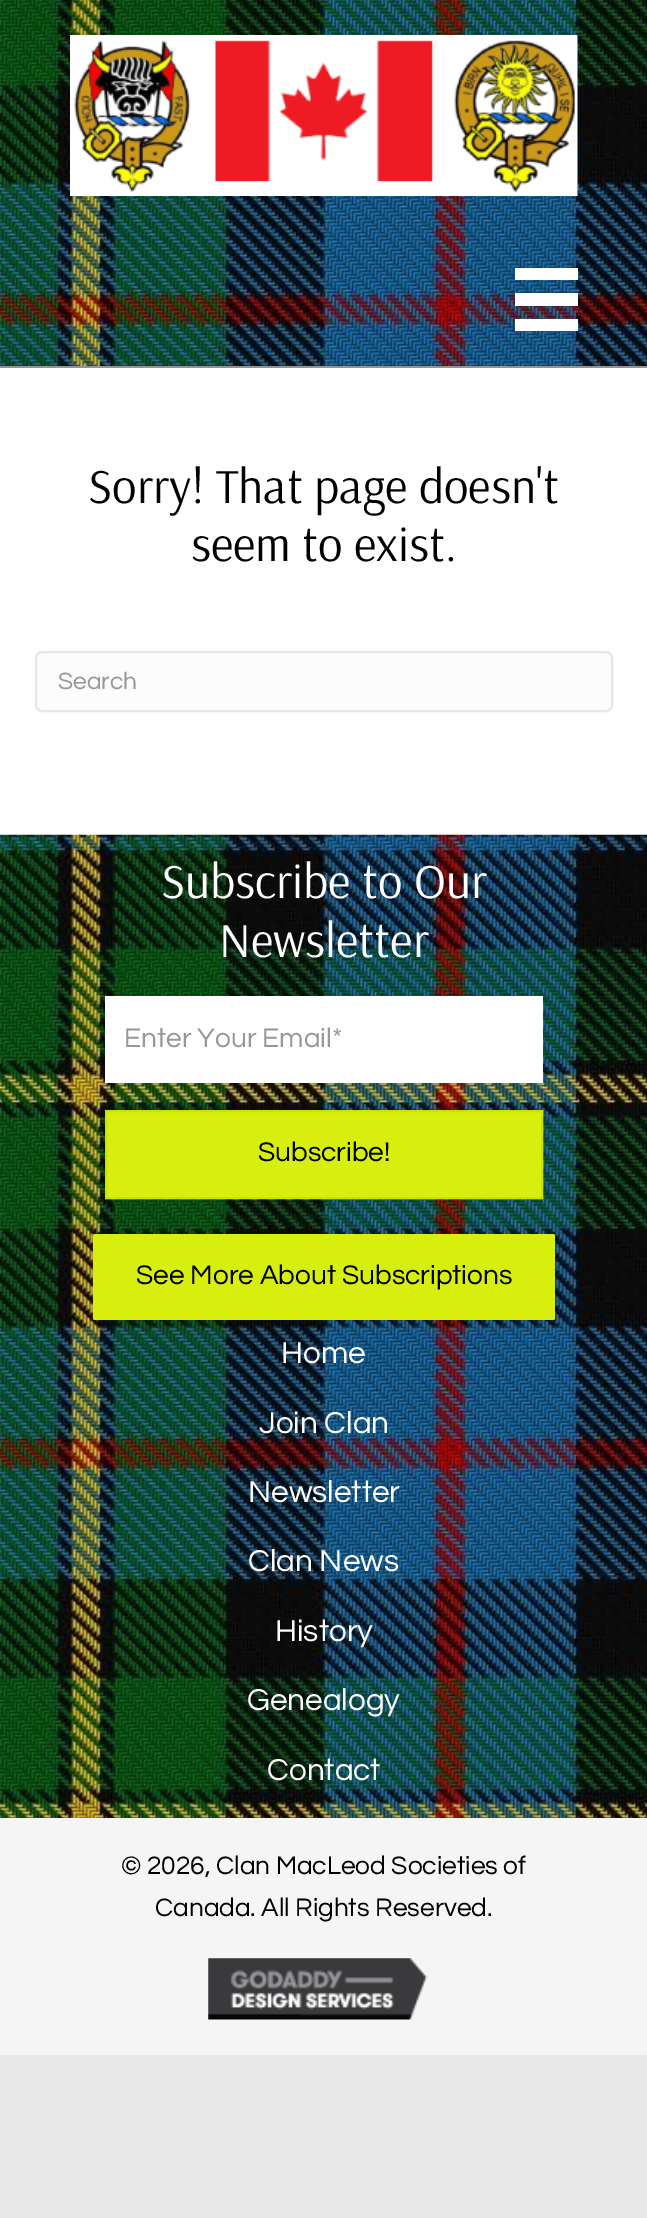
%!PS
<< /PageSize [647 2218] >> setpagedevice
/rgb { dup -16 bitshift 255 div exch dup -8 bitshift 255 and 255 div exch 255 and 255 div setrgbcolor } def
/font { [ exch dup neg 0 0 3 -1 roll 0 0 ] selectfont } def
/text { moveto show } def
/roundrect { 5 dict begin { /r /h /w /y /x } { exch def } forall
  x r add y moveto x w add y 2 copy h add r arct x w add y h add x 1 index r arct
  x y h add x y r arct x y 2 copy exch w add exch r arct closepath end } def
/picture { 5 dict begin { /h /w /y /x /name } { exch def } forall
  gsave x y translate w h scale
  w h 8 [w 0 0 h 0 0] name (r) file false 3 colorimage grestore end } def
0 2218 translate 1 -1 scale
4 setmiterlimit
/s1 { /Arsenal-Regular 49 font 16#000000 rgb } def
/s2 { /Questrial-Regular 24.5 font 16#979797 rgb } def
/s3 { /Arsenal-Regular 49 font 16#FFFFFF rgb } def
/s4 { /Questrial-Regular 28 font 16#979797 rgb } def
/s5 { /Questrial-Regular 28 font 16#000000 rgb } def
/s6 { /Questrial-Regular 31.5 font 16#FFFFFF rgb } def
/s7 { /Questrial-Regular 26.25 font 16#000000 rgb } def
16#E8E8E8 rgb
0 0 647 2218 rectfill
(pic1.raw) 0 0 647 366 picture
16#959494 rgb
0 366 647 2 rectfill
(pic2.raw) 70 35 508 161 picture
16#FFFFFF rgb
515 268 63 12 rectfill
515 293 63 13 rectfill
515 319 63 12 rectfill
0 368 647 467 rectfill
s1
(Sorry! That page doesn't) 88 503 text
(seem to exist.) 191 561 text
16#FCFCFC rgb
36 652 576 59 6 roundrect gsave fill grestore
16#E6E6E6 rgb
2 setlinewidth
stroke
s2
(Search) 58 689 text
(pic3.raw) 0 834 647 984 picture
s3
(Subscribe to Our) 161 898 text
(Newsletter) 219 957 text
105 996 438 87 rectfill
s4
(Enter Your Email*) 124 1047 text
16#D8EF0D rgb
106 1111 moveto 542 1111 lineto 542 1198 lineto 106 1198 lineto closepath gsave fill grestore
16#CCE301 rgb
stroke
s5
(Subscribe!) 258 1161 text
16#D8EF0D rgb
93 1234 462 86 2 roundrect fill
s5
(See More About Subscriptions) 136 1284 text
s6
(Home) 281 1363 text
(Join Clan) 259 1433 text
(Newsletter) 248 1502 text
(Clan News) 248 1571 text
(History) 275 1641 text
(Genealogy) 247 1710 text
(Contact) 267 1780 text
16#F5F5F5 rgb
0 1818 647 237 rectfill
s7
(© 2026, Clan MacLeod Societies of) 121 1874 text
(Canada. All Rights Reserved.) 155 1916 text
(pic4.raw) 208 1958 220 62 picture
showpage
